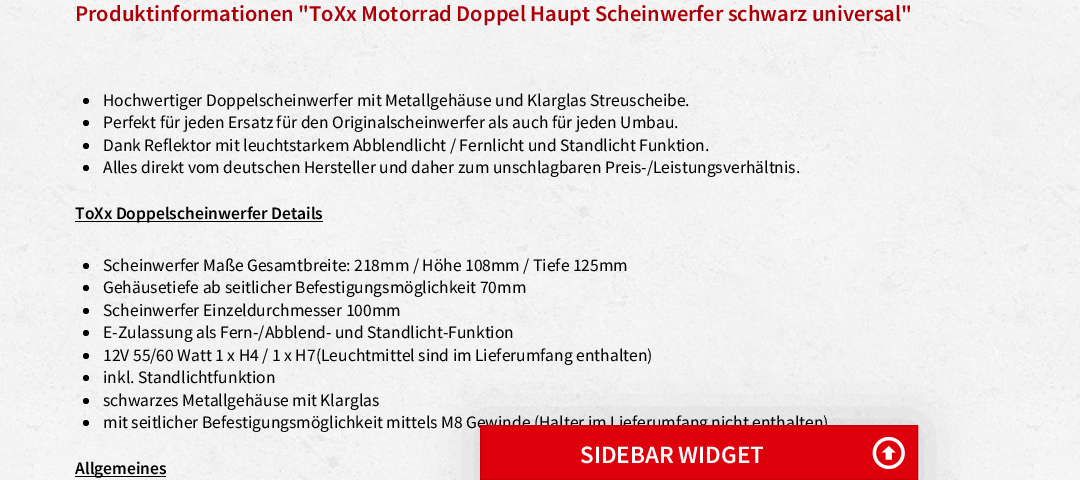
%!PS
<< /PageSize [1080 480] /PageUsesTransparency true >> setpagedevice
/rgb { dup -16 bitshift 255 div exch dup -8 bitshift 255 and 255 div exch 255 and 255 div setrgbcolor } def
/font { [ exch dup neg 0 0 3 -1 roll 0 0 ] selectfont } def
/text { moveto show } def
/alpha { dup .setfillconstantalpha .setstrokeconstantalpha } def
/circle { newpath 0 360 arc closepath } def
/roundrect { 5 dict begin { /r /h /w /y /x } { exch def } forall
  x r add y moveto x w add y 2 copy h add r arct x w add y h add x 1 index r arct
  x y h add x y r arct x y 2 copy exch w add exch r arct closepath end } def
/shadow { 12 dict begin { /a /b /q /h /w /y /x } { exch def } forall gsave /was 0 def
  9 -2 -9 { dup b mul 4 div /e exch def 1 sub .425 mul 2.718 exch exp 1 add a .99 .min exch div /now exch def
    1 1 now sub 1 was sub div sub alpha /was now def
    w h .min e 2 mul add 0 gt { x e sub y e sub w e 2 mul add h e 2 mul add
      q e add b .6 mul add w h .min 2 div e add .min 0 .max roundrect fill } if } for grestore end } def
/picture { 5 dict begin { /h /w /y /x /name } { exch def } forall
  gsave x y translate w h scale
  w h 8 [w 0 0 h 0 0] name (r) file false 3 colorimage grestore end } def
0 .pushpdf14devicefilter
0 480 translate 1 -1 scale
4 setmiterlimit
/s1 { /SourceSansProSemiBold-SemiBold 22.5 font 16#AB0008 rgb } def
/s2 { /SourceSansPro-Regular 17.5 font 16#000000 rgb } def
/s3 { /SourceSansProSemiBold-SemiBold 17.5 font 16#000000 rgb } def
/s4 { /SourceSansProSemiBold-SemiBold 25 font 16#FFFFFF rgb } def
16#FFFFFF rgb
0 0 1080 480 rectfill
(pic1.raw) 0 0 1080 480 picture
s1
(Produktinformationen "ToXx Motorrad Doppel Haupt Scheinwerfer schwarz universal") 75 21 text
16#000000 rgb
86 101 3 circle fill
s2
(Hochwertiger Doppelscheinwerfer mit Metallgehäuse und Klarglas Streuscheibe.) 103 106 text
86 123 3 circle fill
(Perfekt für jeden Ersatz für den Originalscheinwerfer als auch für jeden Umbau.) 103 128 text
86 146 3 circle fill
(Dank Reflektor mit leuchtstarkem Abblendlicht / Fernlicht und Standlicht Funktion.) 103 151 text
86 168 3 circle fill
(Alles direkt vom deutschen Hersteller und daher zum unschlagbaren Preis-/Leistungsverhältnis.) 103 173 text
75 221 248 1 rectfill
s3
(ToXx Doppelscheinwerfer Details) 75 219 text
86 266 3 circle fill
s2
(Scheinwerfer Maße Gesamtbreite: 218mm / Höhe 108mm / Tiefe 125mm) 103 271 text
86 288 3 circle fill
(Gehäusetiefe ab seitlicher Befestigungsmöglichkeit 70mm) 103 293 text
86 311 3 circle fill
(Scheinwerfer Einzeldurchmesser 100mm) 103 316 text
86 333 3 circle fill
(E-Zulassung als Fern-/Abblend- und Standlicht-Funktion) 103 338 text
86 356 3 circle fill
(12V 55/60 Watt 1 x H4 / 1 x H7\(Leuchtmittel sind im Lieferumfang enthalten\)) 103 361 text
86 378 3 circle fill
(inkl. Standlichtfunktion) 103 383 text
86 401 3 circle fill
(schwarzes Metallgehäuse mit Klarglas) 103 406 text
86 423 3 circle fill
(mit seitlicher Befestigungsmöglichkeit mittels M8 Gewinde \(Halter im Lieferumfang nicht enthalten\)) 103 428 text
75 476 91 1 rectfill
s3
(Allgemeines) 75 474 text
480 425 438 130 0 25 0.15 shadow
16#DE000B rgb
480.5 425.5 moveto 917.5 425.5 lineto 917.5 479.5 lineto 480.5 479.5 lineto closepath gsave fill grestore
16#C5000A rgb
stroke
s4
(SIDEBAR WIDGET) 580 463 text
(pic2.raw) 872 436 33 34 picture
.poppdf14devicefilter showpage
